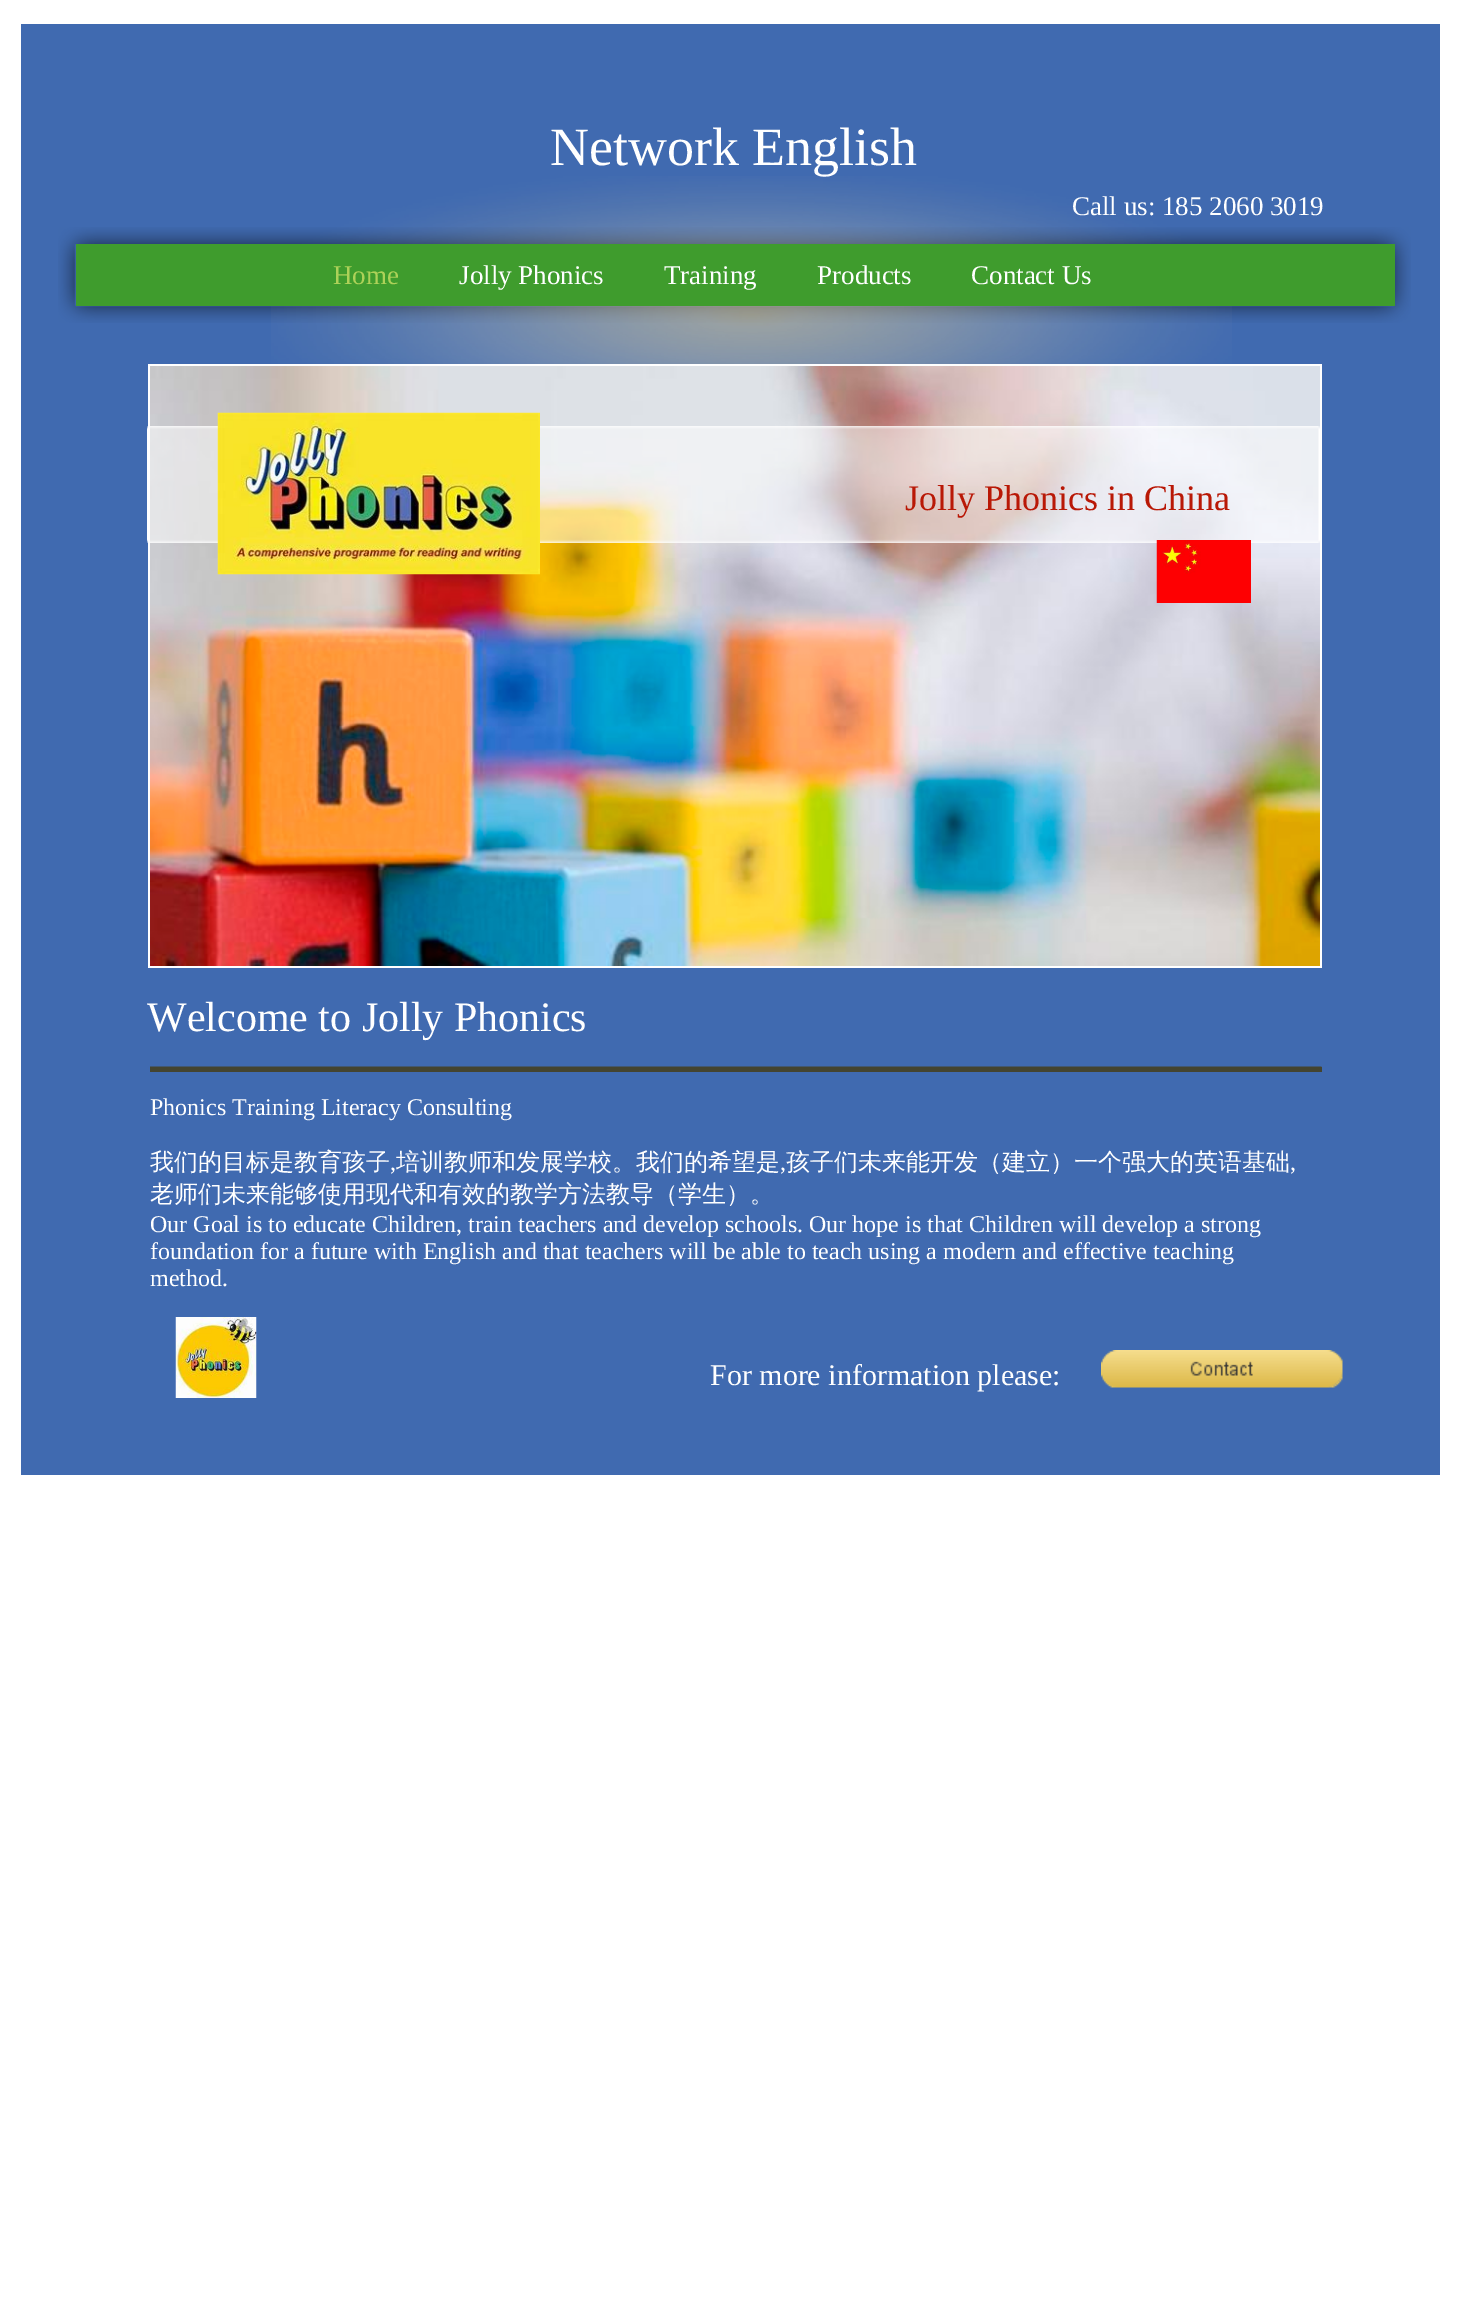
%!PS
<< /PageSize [1470 2315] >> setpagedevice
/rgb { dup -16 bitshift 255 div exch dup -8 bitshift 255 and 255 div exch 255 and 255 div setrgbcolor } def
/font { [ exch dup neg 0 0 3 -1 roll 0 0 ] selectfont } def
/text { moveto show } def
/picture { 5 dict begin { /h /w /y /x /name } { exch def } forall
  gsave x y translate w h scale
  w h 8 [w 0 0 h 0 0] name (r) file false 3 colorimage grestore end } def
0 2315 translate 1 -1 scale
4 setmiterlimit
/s1 { /LiberationSerif-Regular 54 font 16#FFFFFF rgb } def
/s2 { /LiberationSerif-Regular 27 font 16#FFFFFF rgb } def
/s3 { /LiberationSerif-Regular 27 font 16#ADD158 rgb } def
/s4 { /LiberationSerif-Regular 36 font 16#B91806 rgb } def
/s5 { /LiberationSerif-Regular 42 font 16#FFFFFF rgb } def
/s6 { /LiberationSerif-Regular 24 font 16#FFFFFF rgb } def
/s7 { /WenQuanYiZenHei-Medium 24 font 16#FFFFFF rgb } def
/s8 { /LiberationSerif-Regular 30 font 16#FFFFFF rgb } def
16#FFFFFF rgb
0 0 1470 2315 rectfill
16#406AB0 rgb
21 24 1419 1451 rectfill
(pic2.raw) 58 227 1353 96 picture
(pic1.raw) 271 176 961 188 picture
s1
(Network English) 550 165 text
s2
(Call us: 185 2060 3019) 1072 215 text
16#3F9C2D rgb
76 244 1319 62 rectfill
s3
(Home) 333 284 text
s2
(Jolly Phonics) 459 284 text
(Training) 664 284 text
(Products) 817 284 text
(Contact Us) 971 284 text
148 364 1174 604 rectfill
(pic3.raw) 150 366 1170 600 picture
(pic5.raw) 147 426 1173 117 picture
(pic4.raw) 217 412 323 163 picture
s4
(Jolly Phonics in China) 905 510 text
(pic6.raw) 1156 540 95 63 picture
s5
(Welcome to Jolly Phonics) 147 1031 text
16#444430 rgb
150 1067 1172 5 rectfill
(pic7.raw) 150 1066 1172 1 picture
s6
(Phonics Training Literacy Consulting) 150 1115 text
s7
(我们的目标是教育孩子) 150 1170 text
s6
(,) 390 1170 text
s7
(培训教师和发展学校。我们的希望是) 396 1170 text
s6
(,) 780 1170 text
s7
(孩子们未来能开发（建立）一个强大的英语基础) 786 1170 text
s6
(,) 1290 1170 text
s7
(老师们未来能够使用现代和有效的教学方法教导（学生）。) 150 1202 text
s6
(Our Goal is to educate Children, train teachers and develop schools. Our hope is that Children will develop a strong) 150 1232 text
(foundation for a future with English and that teachers will be able to teach using a modern and effective teaching) 150 1259 text
(method.) 150 1286 text
(pic8.raw) 175 1317 82 81 picture
s8
(For more information please:) 710 1385 text
(pic9.raw) 1101 1350 242 38 picture
showpage
